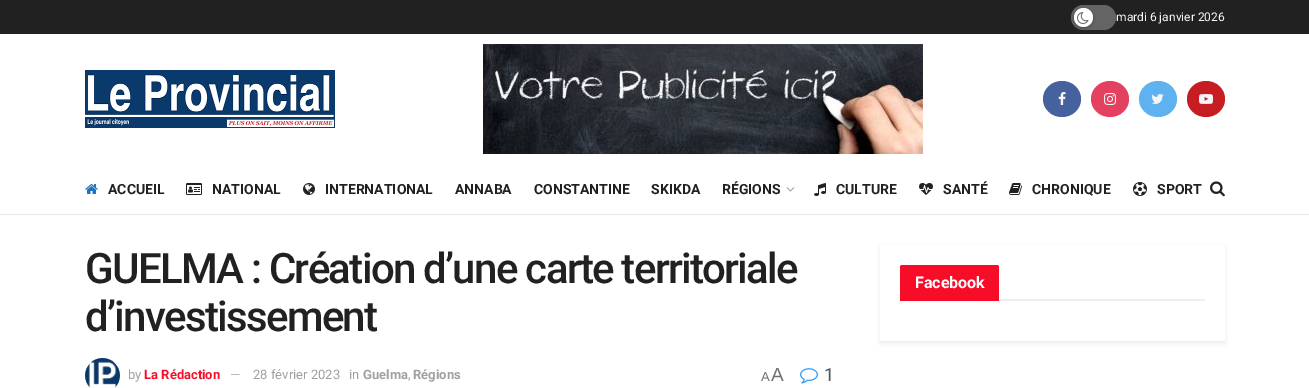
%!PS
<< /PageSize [1309 388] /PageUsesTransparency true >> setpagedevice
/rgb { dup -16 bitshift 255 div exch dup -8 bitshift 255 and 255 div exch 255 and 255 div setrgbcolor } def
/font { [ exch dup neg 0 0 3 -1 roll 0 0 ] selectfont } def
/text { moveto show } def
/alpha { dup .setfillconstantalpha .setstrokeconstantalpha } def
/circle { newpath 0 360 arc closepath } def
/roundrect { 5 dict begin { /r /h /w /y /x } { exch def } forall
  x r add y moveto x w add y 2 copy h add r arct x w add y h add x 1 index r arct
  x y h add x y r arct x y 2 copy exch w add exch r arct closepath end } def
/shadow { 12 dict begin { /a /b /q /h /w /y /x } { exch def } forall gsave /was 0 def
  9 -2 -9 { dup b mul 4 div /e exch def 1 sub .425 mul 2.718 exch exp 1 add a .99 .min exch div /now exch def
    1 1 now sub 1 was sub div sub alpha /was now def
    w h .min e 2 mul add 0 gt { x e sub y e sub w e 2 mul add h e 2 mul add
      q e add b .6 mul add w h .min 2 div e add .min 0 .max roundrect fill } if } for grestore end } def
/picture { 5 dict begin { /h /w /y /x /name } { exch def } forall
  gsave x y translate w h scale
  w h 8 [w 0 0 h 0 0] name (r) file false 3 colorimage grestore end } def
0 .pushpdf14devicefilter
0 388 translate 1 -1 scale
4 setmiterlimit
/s1 { /Roboto-Regular 12 font 16#F5F5F5 rgb } def
/s2 { /Roboto-Bold 14 font 16#212121 rgb } def
/s3 { /Roboto-Regular 13 font 16#A0A0A0 rgb } def
/s4 { /Roboto-Bold 13 font 16#F70D28 rgb } def
/s5 { /Roboto-Bold 13 font 16#A0A0A0 rgb } def
/s6 { /LiberationSans-Regular 13 font 16#707070 rgb } def
/s7 { /LiberationSans-Regular 19 font 16#707070 rgb } def
/s8 { /Roboto-Regular 18 font 16#53585C rgb } def
/s9 { /Roboto-Bold 16 font 16#FFFFFF rgb } def
16#FFFFFF rgb
0 0 1309 388 rectfill
16#212121 rgb
0 0 1309 34 rectfill
16#646464 rgb
1071 5 45 25 12.5 roundrect fill
16#000000 rgb
1074 9 19 19 9.5 1.5 0.3 shadow
16#FFFFFF rgb
1083.5 17.5 9.5 circle fill
(pic1.raw) 1077 12 12 12 picture
s1
(mardi 6 janvier 2026) 1116 21 text
(pic2.raw) 85 70 250 58 picture
(pic3.raw) 483 44 440 110 picture
16#45629F rgb
1062 81 moveto 1072.5 81 1081 89 1081 99 curveto 1081 109 1072.5 117 1062 117 curveto 1051.5 117 1043 109 1043 99 curveto 1043 89 1051.5 81 1062 81 curveto closepath fill
(pic4.raw) 1058 92 8 13 picture
16#E4405F rgb
1110 81 moveto 1120.5 81 1129 89 1129 99 curveto 1129 109 1120.5 117 1110 117 curveto 1099.5 117 1091 109 1091 99 curveto 1091 89 1099.5 81 1110 81 curveto closepath fill
(pic5.raw) 1104 93 12 12 picture
16#5EB2EF rgb
1158 81 moveto 1168.5 81 1177 89 1177 99 curveto 1177 109 1168.5 117 1158 117 curveto 1147.5 117 1139 109 1139 99 curveto 1139 89 1147.5 81 1158 81 curveto closepath fill
(pic6.raw) 1151 94 13 10 picture
16#C61D23 rgb
1206 81 moveto 1216.5 81 1225 89 1225 99 curveto 1225 109 1216.5 117 1206 117 curveto 1195.5 117 1187 109 1187 99 curveto 1187 89 1195.5 81 1206 81 curveto closepath fill
(pic7.raw) 1199 94 14 10 picture
16#E8E8E8 rgb
0 214 1309 1 rectfill
(pic8.raw) 85 184 13 10 picture
s2
(ACCUEIL) 108 194 text
(pic9.raw) 186 183 16 12 picture
(NATIONAL) 212 194 text
(pic10.raw) 303 183 12 12 picture
(INTERNATIONAL) 325 194 text
(ANNABA) 455 194 text
(CONSTANTINE) 534 194 text
(SKIKDA) 651 194 text
(RÉGIONS) 722 194 text
(pic11.raw) 786 187 9 5 picture
(pic12.raw) 814 183 12 13 picture
(CULTURE) 836 194 text
(pic13.raw) 919 183 14 12 picture
(SANTÉ) 943 194 text
(pic14.raw) 1009 183 13 12 picture
(CHRONIQUE) 1032 194 text
(pic15.raw) 1133 182 14 14 picture
(SPORT) 1157 194 text
(pic16.raw) 1210 181 15 16 picture
/Roboto-Medium 42 font
85 283 moveto -1.7 0 (GUELMA : Création d’une carte territoriale) ashow
85 331 moveto -1.7 0 (d’investissement) ashow
(pic17.raw) 85 358 35 30 picture
s3
(by) 128 379 text
s4
(La Rédaction) 144 379 text
s3
(—) 230 379 text
(28 février 2023) 253 379 text
(in) 349 379 text
s5
(Guelma) 363 379 text
s3
(,) 408 379 text
s5
(Régions) 413 379 text
s6
(A) 761 381 text
s7
(A) 771 381 text
(pic18.raw) 800 368 18 16 picture
s8
(1) 824 381 text
gsave
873 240 moveto 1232 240 lineto 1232 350 lineto 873 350 lineto closepath 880 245 moveto 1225 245 lineto 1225 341 lineto 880 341 lineto closepath eoclip newpath
16#000000 rgb
880 247 345 96 0 2 0.08 shadow
grestore
16#EEEEEE rgb
999 299 206 2 rectfill
16#F70D28 rgb
902 265 moveto 997 265 lineto 998 265 999 266 999 267 curveto 999 301 lineto 900 301 lineto 900 267 lineto 900 266 901 265 902 265 curveto closepath fill
s9
(Facebook) 915 288 text
.poppdf14devicefilter showpage
